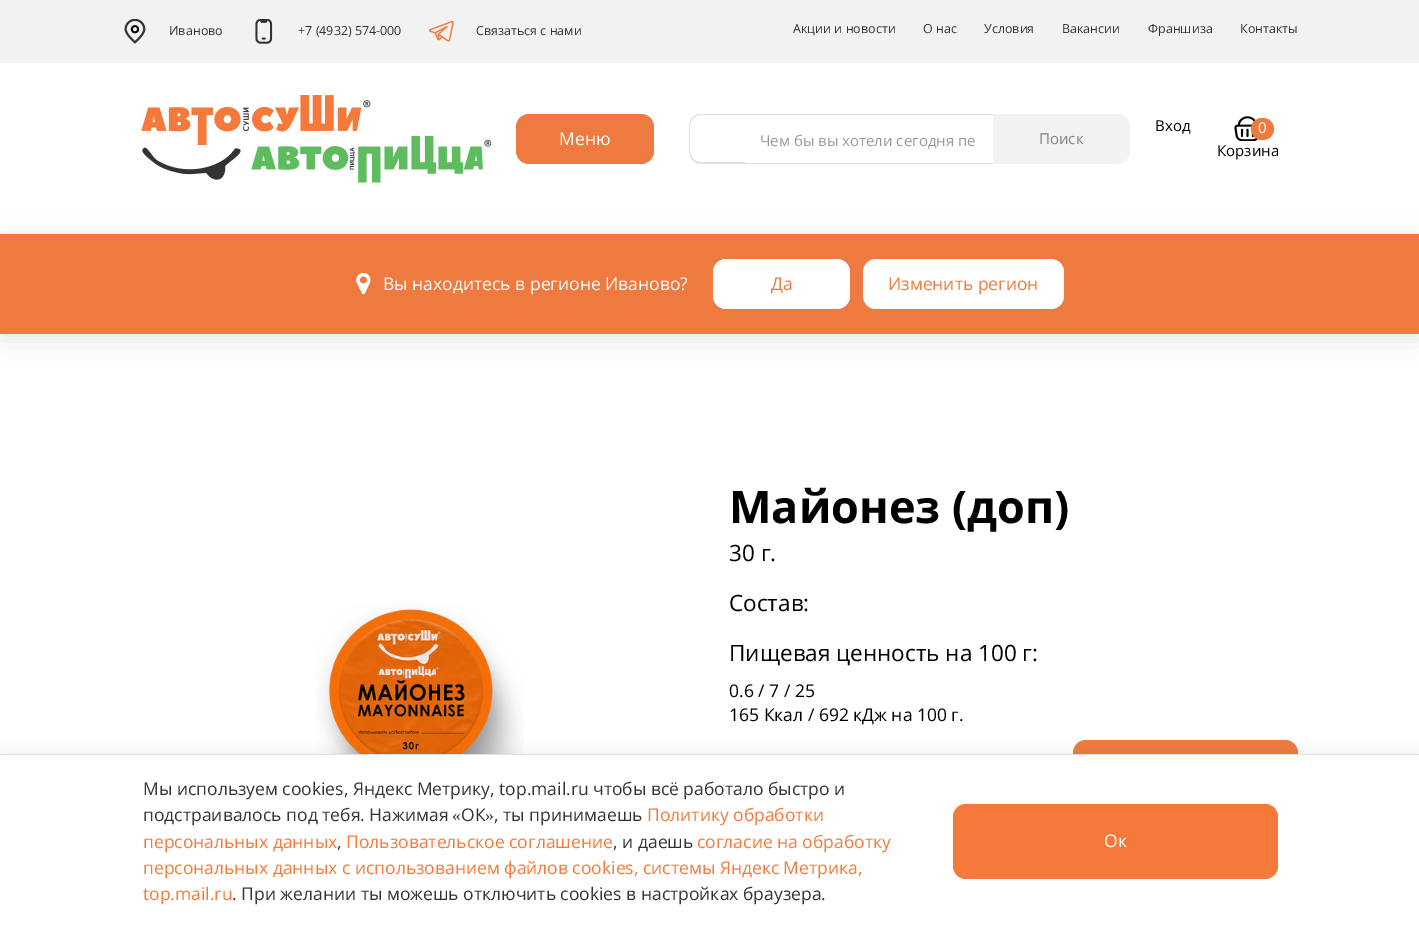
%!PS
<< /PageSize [1419 926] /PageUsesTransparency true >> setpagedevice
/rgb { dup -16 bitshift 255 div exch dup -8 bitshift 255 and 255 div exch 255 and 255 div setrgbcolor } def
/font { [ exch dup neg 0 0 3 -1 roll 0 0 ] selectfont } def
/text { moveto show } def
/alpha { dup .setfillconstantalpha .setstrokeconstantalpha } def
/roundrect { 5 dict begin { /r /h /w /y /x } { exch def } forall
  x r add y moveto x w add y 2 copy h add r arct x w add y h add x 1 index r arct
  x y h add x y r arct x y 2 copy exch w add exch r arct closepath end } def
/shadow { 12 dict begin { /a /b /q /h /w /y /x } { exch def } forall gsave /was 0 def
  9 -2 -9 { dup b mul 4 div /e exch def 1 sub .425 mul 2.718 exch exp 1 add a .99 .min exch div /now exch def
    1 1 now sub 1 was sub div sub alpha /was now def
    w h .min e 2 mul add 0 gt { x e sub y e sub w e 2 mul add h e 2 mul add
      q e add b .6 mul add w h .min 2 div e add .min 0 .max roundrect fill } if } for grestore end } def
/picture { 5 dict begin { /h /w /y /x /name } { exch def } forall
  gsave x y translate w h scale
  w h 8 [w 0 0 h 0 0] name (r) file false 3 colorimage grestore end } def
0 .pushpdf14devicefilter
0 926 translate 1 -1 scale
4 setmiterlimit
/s1 { /OpenSans-Regular 12.5 font 16#333333 rgb } def
/s2 { /OpenSans-Regular 17.5 font 16#FFFFFF rgb } def
/s3 { /OpenSans-Regular 15 font 16#999999 rgb } def
/s4 { /OpenSans-Regular 15 font 16#828282 rgb } def
/s5 { /OpenSans-Regular 15 font 16#000000 rgb } def
/s6 { /OpenSans-Regular 15 font 16#FFFFFF rgb } def
/s7 { /OpenSans-Regular 17.5 font 16#EE7A40 rgb } def
/s8 { /OpenSans-Bold 45 font 16#000000 rgb } def
/s9 { /OpenSans-Regular 22.5 font 16#000000 rgb } def
/s10 { /OpenSans-Regular 17.5 font 16#000000 rgb } def
/s11 { /OpenSans-Regular 17.5 font 16#333333 rgb } def
/s12 { /LiberationSerif-Regular 17.5 font 16#333333 rgb } def
/s13 { /OpenSans-Regular 17.5 font 16#F4793B rgb } def
16#FFFFFF rgb
0 0 1419 926 rectfill
16#F2F2F2 rgb
0 0 1419 63 rectfill
(pic1.raw) 124 19 22 25 picture
s1
(Иваново) 169 35 text
(pic2.raw) 255 19 18 25 picture
(+7 \(4932\) 574-000) 298 35 text
(pic3.raw) 429 20 25 22 picture
(Связаться с нами) 476 35 text
(Акции и новости) 793 33 text
(О нас) 923 33 text
(Условия) 984 33 text
(Вакансии) 1062 33 text
(Франшиза) 1148 33 text
(Контакты) 1240 33 text
(pic4.raw) 141 95 350 88 picture
16#EE7A40 rgb
516 114 138 50 13 roundrect fill
s2
(Меню) 559 145 text
16#E0E0E0 rgb
701 114 moveto 745 114 lineto 745 164 lineto 701 164 lineto 694 164 689 158 689 151 curveto 689 126 lineto 689 119 694 114 701 114 curveto closepath 701 115 moveto 745 115 lineto 745 162 lineto 701 162 lineto 695 162 690 157 690 151 curveto 690 126 lineto 690 120 695 115 701 115 curveto closepath eofill
745 114 249 1 rectfill
745 163 249 1 rectfill
s3
(Чем бы вы хотели сегодня пе) 760 146 text
16#F2F2F2 rgb
993 114 moveto 1117 114 lineto 1124 114 1130 120 1130 127 curveto 1130 151 lineto 1130 158 1124 164 1117 164 curveto 993 164 lineto closepath fill
s4
(Поиск) 1039 144 text
s5
(Вход) 1155 131 text
(pic5.raw) 1234 116 24 25 picture
16#EE7A40 rgb
1251 118 23 22 11 roundrect fill
s6
(0) 1258 133 text
s5
(Корзина) 1217 156 text
0 240 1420 100 0 12 0.1 shadow
16#EE7A40 rgb
0 234 1419 100 rectfill
(pic6.raw) 356 272 15 23 picture
s2
(Вы находитесь в регионе Иваново?) 383 290 text
713 259 137 50 13 roundrect fill
s7
(Да) 771 290 text
16#FFFFFF rgb
863 259 201 50 13 roundrect fill
s7
(Изменить регион) 888 290 text
(pic7.raw) 316 604 208 150 picture
s8
(Майонез \(доп\)) 729 523 text
s9
(30 г.) 729 561 text
(Состав:) 729 611 text
(Пищевая ценность на 100 г:) 729 661 text
s10
(0.6 / 7 / 25) 729 697 text
(165 Ккал / 692 кДж на 100 г.) 729 721 text
16#EE7A40 rgb
1073 740 225 63 13 roundrect fill
16#000000 rgb
0 751 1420 173 0 7.5 0.06 shadow
16#FFFFFF rgb
0 755 1419 171 rectfill
16#E0E0E0 rgb
0 754 1419 1 rectfill
s11
(Мы используем cookies, Яндекс Метрику, top.mail.ru чтобы всё работало быстро и) 143 795 text
(подстраивалось под тебя. Нажимая) 143 821 text
s12
(«) 452 821 text
s11
(ОК) 461 821 text
s12
(») 485 821 text
s11
(, ты принимаешь) 494 821 text
s13
(Политику обработки) 647 821 text
(персональных данных) 143 848 text
s11
(,) 337 848 text
s13
(Пользовательское соглашение) 346 848 text
s11
(, и даешь) 613 848 text
s13
(согласие на обработку) 697 848 text
(персональных данных с использованием файлов cookies, системы Яндекс Метрика,) 143 874 text
(top.mail.ru) 143 900 text
s11
(. При желании ты можешь отключить cookies в настройках браузера.) 232 900 text
16#F4793B rgb
953 804 325 75 13 roundrect fill
s2
(Ок) 1104 847 text
.poppdf14devicefilter showpage
